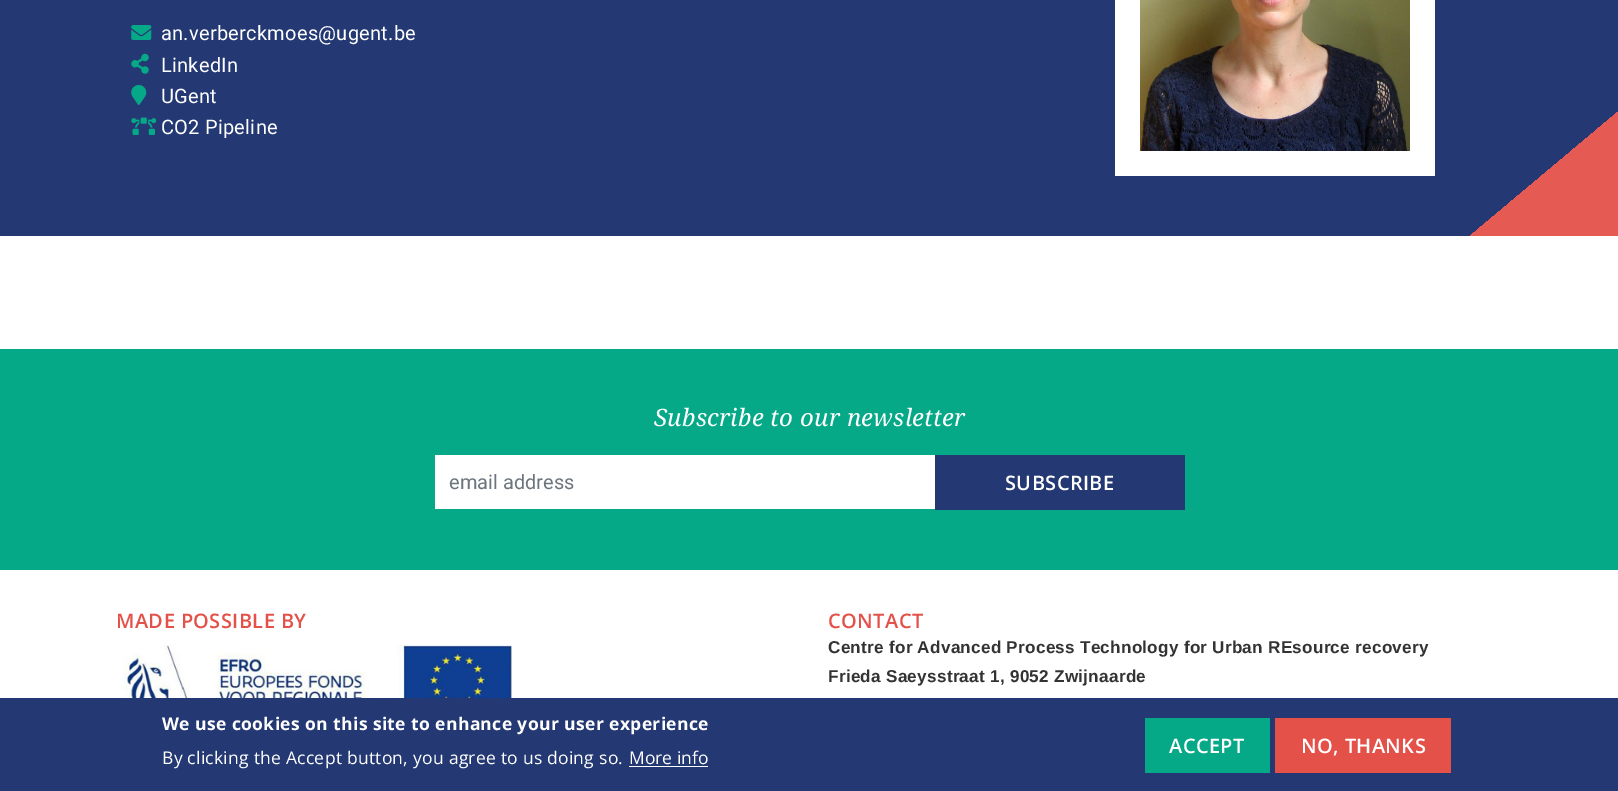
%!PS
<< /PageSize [1618 791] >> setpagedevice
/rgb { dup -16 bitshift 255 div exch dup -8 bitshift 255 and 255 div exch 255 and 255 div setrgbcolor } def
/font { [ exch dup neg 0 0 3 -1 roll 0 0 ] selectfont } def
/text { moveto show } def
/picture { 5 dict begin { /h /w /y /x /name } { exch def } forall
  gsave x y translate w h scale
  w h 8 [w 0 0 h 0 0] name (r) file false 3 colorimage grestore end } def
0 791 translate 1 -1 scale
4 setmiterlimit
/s1 { /Roboto-Regular 20 font 16#6C757D rgb } def
/s2 { /OpenSans-Regular 17.5 font 16#FFFFFF rgb } def
16#FFFFFF rgb
0 0 1618 791 rectfill
gsave 0 0 moveto 1618 0 lineto 1618 236 lineto 0 236 lineto closepath clip newpath
<< /ShadingType 2 /ColorSpace /DeviceRGB /Coords [367 -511 1252 544] /Extend [true true] /Function << /FunctionType 3 /Domain [0 1] /Functions [<< /FunctionType 2 /Domain [0 1] /C0 [0.071 0.678 0.553] /C1 [0.071 0.678 0.553] /N 1 >> << /FunctionType 2 /Domain [0 1] /C0 [0.141 0.224 0.451] /C1 [0.141 0.224 0.451] /N 1 >> << /FunctionType 2 /Domain [0 1] /C0 [0.898 0.353 0.322] /C1 [0.898 0.353 0.322] /N 1 >>] /Bounds [0.07 0.93] /Encode [0 1 0 1 0 1] >> >> shfill grestore
(pic1.raw) 131 25 21 15 picture
/Roboto-Regular 20 font
161 40 moveto 0.25 0 (an.verberckmoes@ugent.be) ashow
(pic2.raw) 131 53 18 21 picture
161 72 moveto 0.25 0 (LinkedIn) ashow
(pic3.raw) 131 85 16 20 picture
161 103 moveto 0.25 0 (UGent) ashow
(pic4.raw) 131 117 26 18 picture
161 134 moveto 0.25 0 (CO2 Pipeline) ashow
1115 0 320 176 rectfill
(pic5.raw) 1140 0 270 151 picture
16#06A987 rgb
0 349 1618 221 rectfill
/NotoSerif-Italic 24 font
16#FFFFFF rgb
654 426 moveto 0.25 0 (Subscribe to our newsletter) ashow
435 455 500 54 rectfill
s1
(email address) 449 489 text
16#243973 rgb
935 455 250 55 rectfill
/OpenSans-SemiBold 20 font
16#FFFFFF rgb
1005 490 moveto 0.4 0 (SUBSCRIBE) ashow
16#E45149 rgb
116 628 moveto 0.4 0 (MADE POSSIBLE BY) ashow
(pic6.raw) 123 644 389 54 picture
828 628 moveto 0.4 0 (CONTACT) ashow
/LiberationSans-Bold 17.15 font
16#333333 rgb
828 653 moveto 0.25 0 (Centre for Advanced Process Technology for Urban REsource recovery) ashow
828 682 moveto 0.25 0 (Frieda Saeysstraat 1, 9052 Zwijnaarde) ashow
16#243973 rgb
0 698 1618 93 rectfill
/OpenSans-Bold 17.5 font
16#FFFFFF rgb
162 730 moveto 0.38 0 (We use cookies on this site to enhance your user experience) ashow
/OpenSans-Regular 17.5 font
162 764 moveto 0.25 0 (By clicking the Accept button, you agree to us doing so.) ashow
(More info) 629 764 text
629 766 79 1 rectfill
16#06A987 rgb
1145 718 125 55 rectfill
/OpenSans-SemiBold 20 font
16#FFFFFF rgb
1169 753 moveto 0.4 0 (ACCEPT) ashow
16#E45149 rgb
1275 718 176 55 rectfill
16#FFFFFF rgb
1301 753 moveto 0.4 0 (NO, THANKS) ashow
showpage
